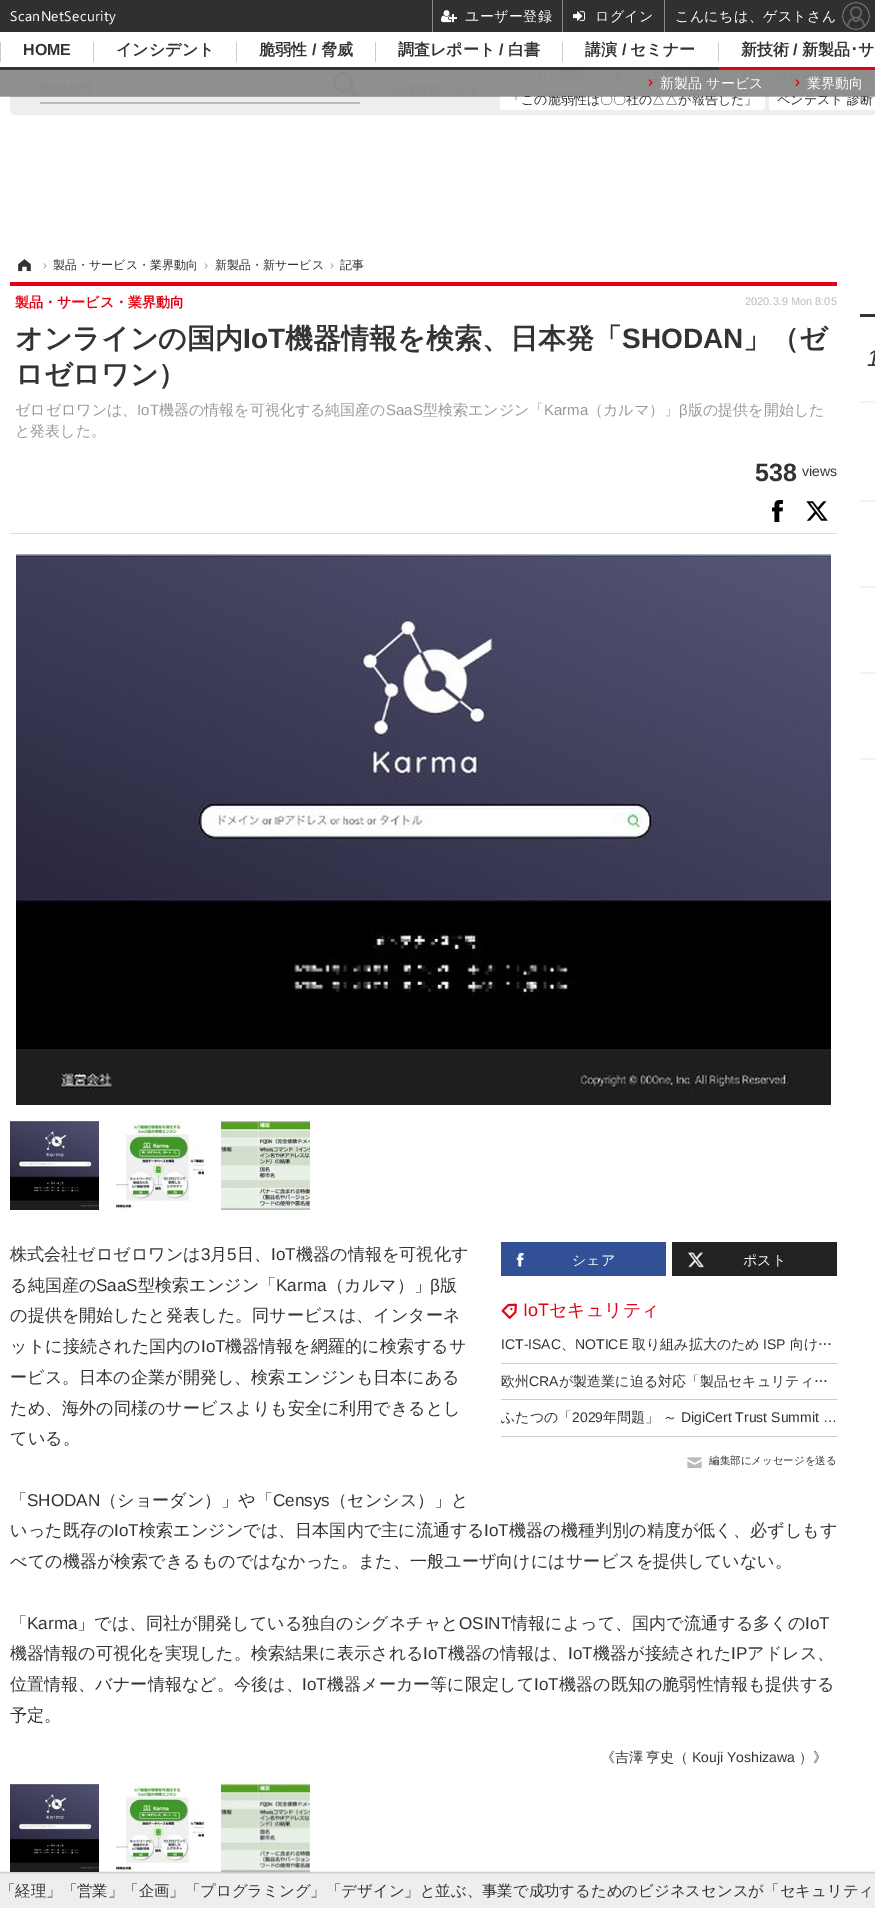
%!PS
<< /PageSize [875 1908] /PageUsesTransparency true >> setpagedevice
/rgb { dup -16 bitshift 255 div exch dup -8 bitshift 255 and 255 div exch 255 and 255 div setrgbcolor } def
/font { [ exch dup neg 0 0 3 -1 roll 0 0 ] selectfont } def
/text { moveto show } def
/alpha { dup .setfillconstantalpha .setstrokeconstantalpha } def
/roundrect { 5 dict begin { /r /h /w /y /x } { exch def } forall
  x r add y moveto x w add y 2 copy h add r arct x w add y h add x 1 index r arct
  x y h add x y r arct x y 2 copy exch w add exch r arct closepath end } def
/shadow { 12 dict begin { /a /b /q /h /w /y /x } { exch def } forall gsave /was 0 def
  9 -2 -9 { dup b mul 4 div /e exch def 1 sub .425 mul 2.718 exch exp 1 add a .99 .min exch div /now exch def
    1 1 now sub 1 was sub div sub alpha /was now def
    w h .min e 2 mul add 0 gt { x e sub y e sub w e 2 mul add h e 2 mul add
      q e add b .6 mul add w h .min 2 div e add .min 0 .max roundrect fill } if } for grestore end } def
/picture { 5 dict begin { /h /w /y /x /name } { exch def } forall
  gsave x y translate w h scale
  w h 8 [w 0 0 h 0 0] name (r) file false 3 colorimage grestore end } def
0 .pushpdf14devicefilter
0 1908 translate 1 -1 scale
4 setmiterlimit
/s1 { /WenQuanYiZenHei-Medium 13 font 16#333333 rgb } def
/s2 { /LiberationSans-Bold 16 font 16#333333 rgb } def
/s3 { /WenQuanYiZenHei-Bold 16 font 16#333333 rgb } def
/s4 { /IPAPGothic-Bold 16 font 16#333333 rgb } def
/s5 { /WenQuanYiZenHei-Medium 14 font 16#FFFFFF rgb } def
/s6 { /LiberationSans-Regular 12 font 16#999999 rgb } def
/s7 { /WenQuanYiZenHei-Medium 12 font 16#333333 rgb } def
/s8 { /WenQuanYiZenHei-Bold 14 font 16#E60012 rgb } def
/s9 { /LiberationSans-Regular 11 font 16#BBBBBB rgb } def
/s10 { /WenQuanYiZenHei-Bold 28 font 16#333333 rgb } def
/s11 { /LiberationSans-Bold 28 font 16#333333 rgb } def
/s12 { /WenQuanYiZenHei-Medium 15 font 16#999999 rgb } def
/s13 { /LiberationSans-Regular 15 font 16#999999 rgb } def
/s14 { /LiberationSans-Bold 25 font 16#333333 rgb } def
/s15 { /LiberationSans-Regular 14 font 16#333333 rgb } def
/s16 { /WenQuanYiZenHei-Medium 17.1 font 16#333333 rgb } def
/s17 { /LiberationSans-Regular 17.1 font 16#333333 rgb } def
/s18 { /LiberationSans-Regular 18 font 16#E60012 rgb } def
/s19 { /WenQuanYiZenHei-Medium 18 font 16#E60012 rgb } def
/s20 { /WenQuanYiZenHei-Medium 14 font 16#333333 rgb } def
/s21 { /WenQuanYiZenHei-Medium 10.5 font 16#333333 rgb } def
/s22 { /LiberationSans-Italic 23 font 16#333333 rgb } def
/s23 { /WenQuanYiZenHei-Medium 15.4 font 16#333333 rgb } def
16#FFFFFF rgb
0 0 875 1908 rectfill
16#303030 rgb
0 0 875 32 rectfill
/SegoeUI-Regular 14 font
16#FFFFFF rgb
10 21 moveto 0.4 0 (ScanNetSecurity) ashow
16#888888 rgb
432 0 1 32 rectfill
(pic1.raw) 441 10 16 13 picture
/WenQuanYiZenHei-Medium 14 font
16#FFFFFF rgb
465 21 moveto 0.4 0 (ユーザー登録) ashow
16#888888 rgb
664 0 1 32 rectfill
562 0 1 32 rectfill
(pic2.raw) 573 11 12 11 picture
16#FFFFFF rgb
595 21 moveto 0.4 0 (ログイン) ashow
675 21 moveto 0.4 0 (こんにちは、ゲストさん) ashow
(pic3.raw) 842 2 28 28 picture
16#EEEEEE rgb
10 61 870 54 5 roundrect fill
(pic7.raw) 333 72 24 24 picture
16#FFFFFF rgb
500 90 265 20 3 roundrect fill
s1
(「この脆弱性は〇〇社の△△が報告した」) 508 104 text
16#FFFFFF rgb
769 90 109 20 3 roundrect fill
s1
(ペンテスト 診断) 777 104 text
(pic4.raw) 0 41 875 56 picture
16#CCCCCC rgb
0 42 1 20 rectfill
s2
(HOME) 23 55 text
16#CCCCCC rgb
93 42 1 20 rectfill
s3
(インシデント) 116 55 text
16#CCCCCC rgb
236 42 1 20 rectfill
s3
(脆弱性) 259 55 text
s2
(/) 312 55 text
s3
(脅威) 321 55 text
16#CCCCCC rgb
375 42 1 20 rectfill
s3
(調査レポート) 398 55 text
s2
(/) 499 55 text
s3
(白書) 508 55 text
16#CCCCCC rgb
562 42 1 20 rectfill
s3
(講演) 585 55 text
s2
(/) 622 55 text
s3
(セミナー) 630 55 text
16#CCCCCC rgb
718 42 1 20 rectfill
s3
(新技術) 741 55 text
s2
(/) 793 55 text
s3
(新製品) 802 55 text
s4
(･) 850 55 text
s3
(サ) 858 55 text
16#E60012 rgb
719 67 156 3 rectfill
(pic5.raw) 648 79 5 7 picture
s5
(新製品 サービス) 660 88 text
(pic6.raw) 795 79 5 7 picture
(業界動向) 807 88 text
16#BBBBBB rgb
40 102 320 2 rectfill
(pic8.raw) 18 259 13 13 picture
s6
(›) 43 269 text
s7
(製品・サービス・業界動向) 53 269 text
s6
(›) 204 269 text
s7
(新製品・新サービス) 215 269 text
s6
(›) 330 269 text
s7
(記事) 340 269 text
16#E60012 rgb
10 282 827 4 rectfill
s8
(製品・サービス・業界動向) 15 307 text
s9
(2020.3.9 Mon 8:05) 745 305 text
s10
(オンラインの国内) 15 348 text
s11
(IoT) 243 348 text
s10
(機器情報を検索、日本発「) 285 348 text
s11
(SHODAN) 622 348 text
s10
(」（ゼ) 743 348 text
(ロゼロワン）) 15 384 text
s12
(ゼロゼロワンは、) 15 415 text
s13
(IoT) 137 415 text
s12
(機器の情報を可視化する純国産の) 159 415 text
s13
(SaaS) 386 415 text
s12
(型検索エンジン「) 423 415 text
s13
(Karma) 544 415 text
s12
(（カルマ）」) 588 415 text
s13
(β) 679 415 text
s12
(版の提供を開始した) 688 415 text
(と発表した。) 15 436 text
s14
(538) 755 481 text
s15
(views) 802 476 text
16#DDDDDD rgb
10 533 827 1 rectfill
(pic9.raw) 772 500 11 22 picture
(pic10.raw) 806 501 22 20 picture
(pic11.raw) 16 554 815 551 picture
(pic12.raw) 10 1121 89 89 picture
(pic13.raw) 116 1121 88 89 picture
(pic14.raw) 221 1121 89 89 picture
s16
(株式会社ゼロゼロワンは) 10 1260 text
s17
(3) 201 1260 text
s16
(月) 210 1260 text
s17
(5) 227 1260 text
s16
(日、) 237 1260 text
s17
(IoT) 271 1260 text
s16
(機器の情報を可視化す) 296 1260 text
(る純国産の) 10 1291 text
s17
(SaaS) 96 1291 text
s16
(型検索エンジン「) 138 1291 text
s17
(Karma) 276 1291 text
s16
(（カルマ）」) 327 1291 text
s17
(β) 430 1291 text
s16
(版) 440 1291 text
(の提供を開始したと発表した。同サービスは、インターネ) 10 1321 text
(ットに接続された国内の) 10 1352 text
s17
(IoT) 201 1352 text
s16
(機器情報を網羅的に検索するサ) 225 1352 text
(ービス。日本の企業が開発し、検索エンジンも日本にある) 10 1383 text
(ため、海外の同様のサービスよりも安全に利用できるとし) 10 1414 text
(ている。) 10 1444 text
(「) 10 1506 text
s17
(SHODAN) 27 1506 text
s16
(（ショーダン）」や「) 100 1506 text
s17
(Censys) 273 1506 text
s16
(（センシス）」と) 330 1506 text
(いった既存の) 10 1536 text
s17
(IoT) 114 1536 text
s16
(検索エンジンでは、日本国内で主に流通する) 139 1536 text
s17
(IoT) 484 1536 text
s16
(機器の機種判別の精度が低く、必ずしもす) 509 1536 text
(べての機器が検索できるものではなかった。また、一般ユーザ向けにはサービスを提供していない。) 10 1567 text
(「) 10 1629 text
s17
(Karma) 27 1629 text
s16
(」では、同社が開発している独自のシグネチャと) 77 1629 text
s17
(OSINT) 459 1629 text
s16
(情報によって、国内で流通する多くの) 511 1629 text
s17
(IoT) 805 1629 text
s16
(機器情報の可視化を実現した。検索結果に表示される) 10 1659 text
s17
(IoT) 423 1659 text
s16
(機器の情報は、) 448 1659 text
s17
(IoT) 568 1659 text
s16
(機器が接続された) 593 1659 text
s17
(IP) 731 1659 text
s16
(アドレス、) 747 1659 text
(位置情報、バナー情報など。今後は、) 10 1690 text
s17
(IoT) 302 1690 text
s16
(機器メーカー等に限定して) 327 1690 text
s17
(IoT) 534 1690 text
s16
(機器の既知の脆弱性情報も提供する) 559 1690 text
(予定。) 10 1721 text
16#315096 rgb
501 1242 165 34 rectfill
(pic15.raw) 516 1253 8 14 picture
s5
(シェア) 572 1265 text
16#222222 rgb
672 1242 165 34 rectfill
(pic16.raw) 688 1252 16 16 picture
s5
(ポスト) 743 1265 text
(pic17.raw) 501 1303 16 16 picture
s18
(IoT) 523 1316 text
s19
(セキュリティ) 549 1316 text
16#CCCCCC rgb
501 1363 336 1 rectfill
s15
(ICT-ISAC) 501 1349 text
s20
(、) 561 1349 text
s15
(NOTICE) 575 1349 text
s20
(取り組み拡大のため) 632 1349 text
s15
(ISP) 763 1349 text
s20
(向け…) 790 1349 text
16#CCCCCC rgb
501 1399 336 1 rectfill
s20
(欧州) 501 1386 text
s15
(CRA) 529 1386 text
s20
(が製造業に迫る対応「製品セキュリティ…) 559 1386 text
16#CCCCCC rgb
501 1436 336 1 rectfill
s20
(ふたつの「) 501 1422 text
s15
(2029) 572 1422 text
s20
(年問題」) 603 1422 text
(～) 663 1422 text
s15
(DigiCert Trust Summit …) 681 1422 text
(pic18.raw) 687 1457 15 12 picture
s21
(編集部にメッセージを送る) 709 1464 text
s20
(《吉澤) 601 1762 text
(亨史（) 646 1762 text
s15
(Kouji Yoshizawa) 692 1762 text
s20
(）》) 799 1762 text
(pic19.raw) 10 1784 89 88 picture
(pic20.raw) 116 1784 88 88 picture
(pic21.raw) 221 1783 89 90 picture
860 314 15 3 rectfill
16#F3F3F3 rgb
860 401 15 2 rectfill
s22
(1) 867 366 text
16#F3F3F3 rgb
860 500 15 2 rectfill
860 586 15 2 rectfill
860 672 15 2 rectfill
860 758 15 2 rectfill
16#000000 rgb
-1 1872 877 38 0 0.5 0.2 shadow
gsave 0 1874 moveto 875 1874 lineto 875 1908 lineto 0 1908 lineto closepath clip newpath
<< /ShadingType 2 /ColorSpace /DeviceRGB /Coords [438 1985 438 1874] /Extend [true true] /Function << /FunctionType 3 /Domain [0 1] /Functions [<< /FunctionType 2 /Domain [0 1] /C0 [1 1 1] /C1 [1 1 1] /N 1 >> << /FunctionType 2 /Domain [0 1] /C0 [0.937 0.937 0.937] /C1 [0.933 0.933 0.933] /N 1 >>] /Bounds [0.68] /Encode [0 1 0 1] >> >> shfill grestore
16#DDDDDD rgb
0 1873 875 1 rectfill
s23
(「経理」「営業」「企画」「プログラミング」「デザイン」と並ぶ、事業で成功するためのビジネスセンスが「セキュリティ) 0 1896 text
.poppdf14devicefilter showpage
